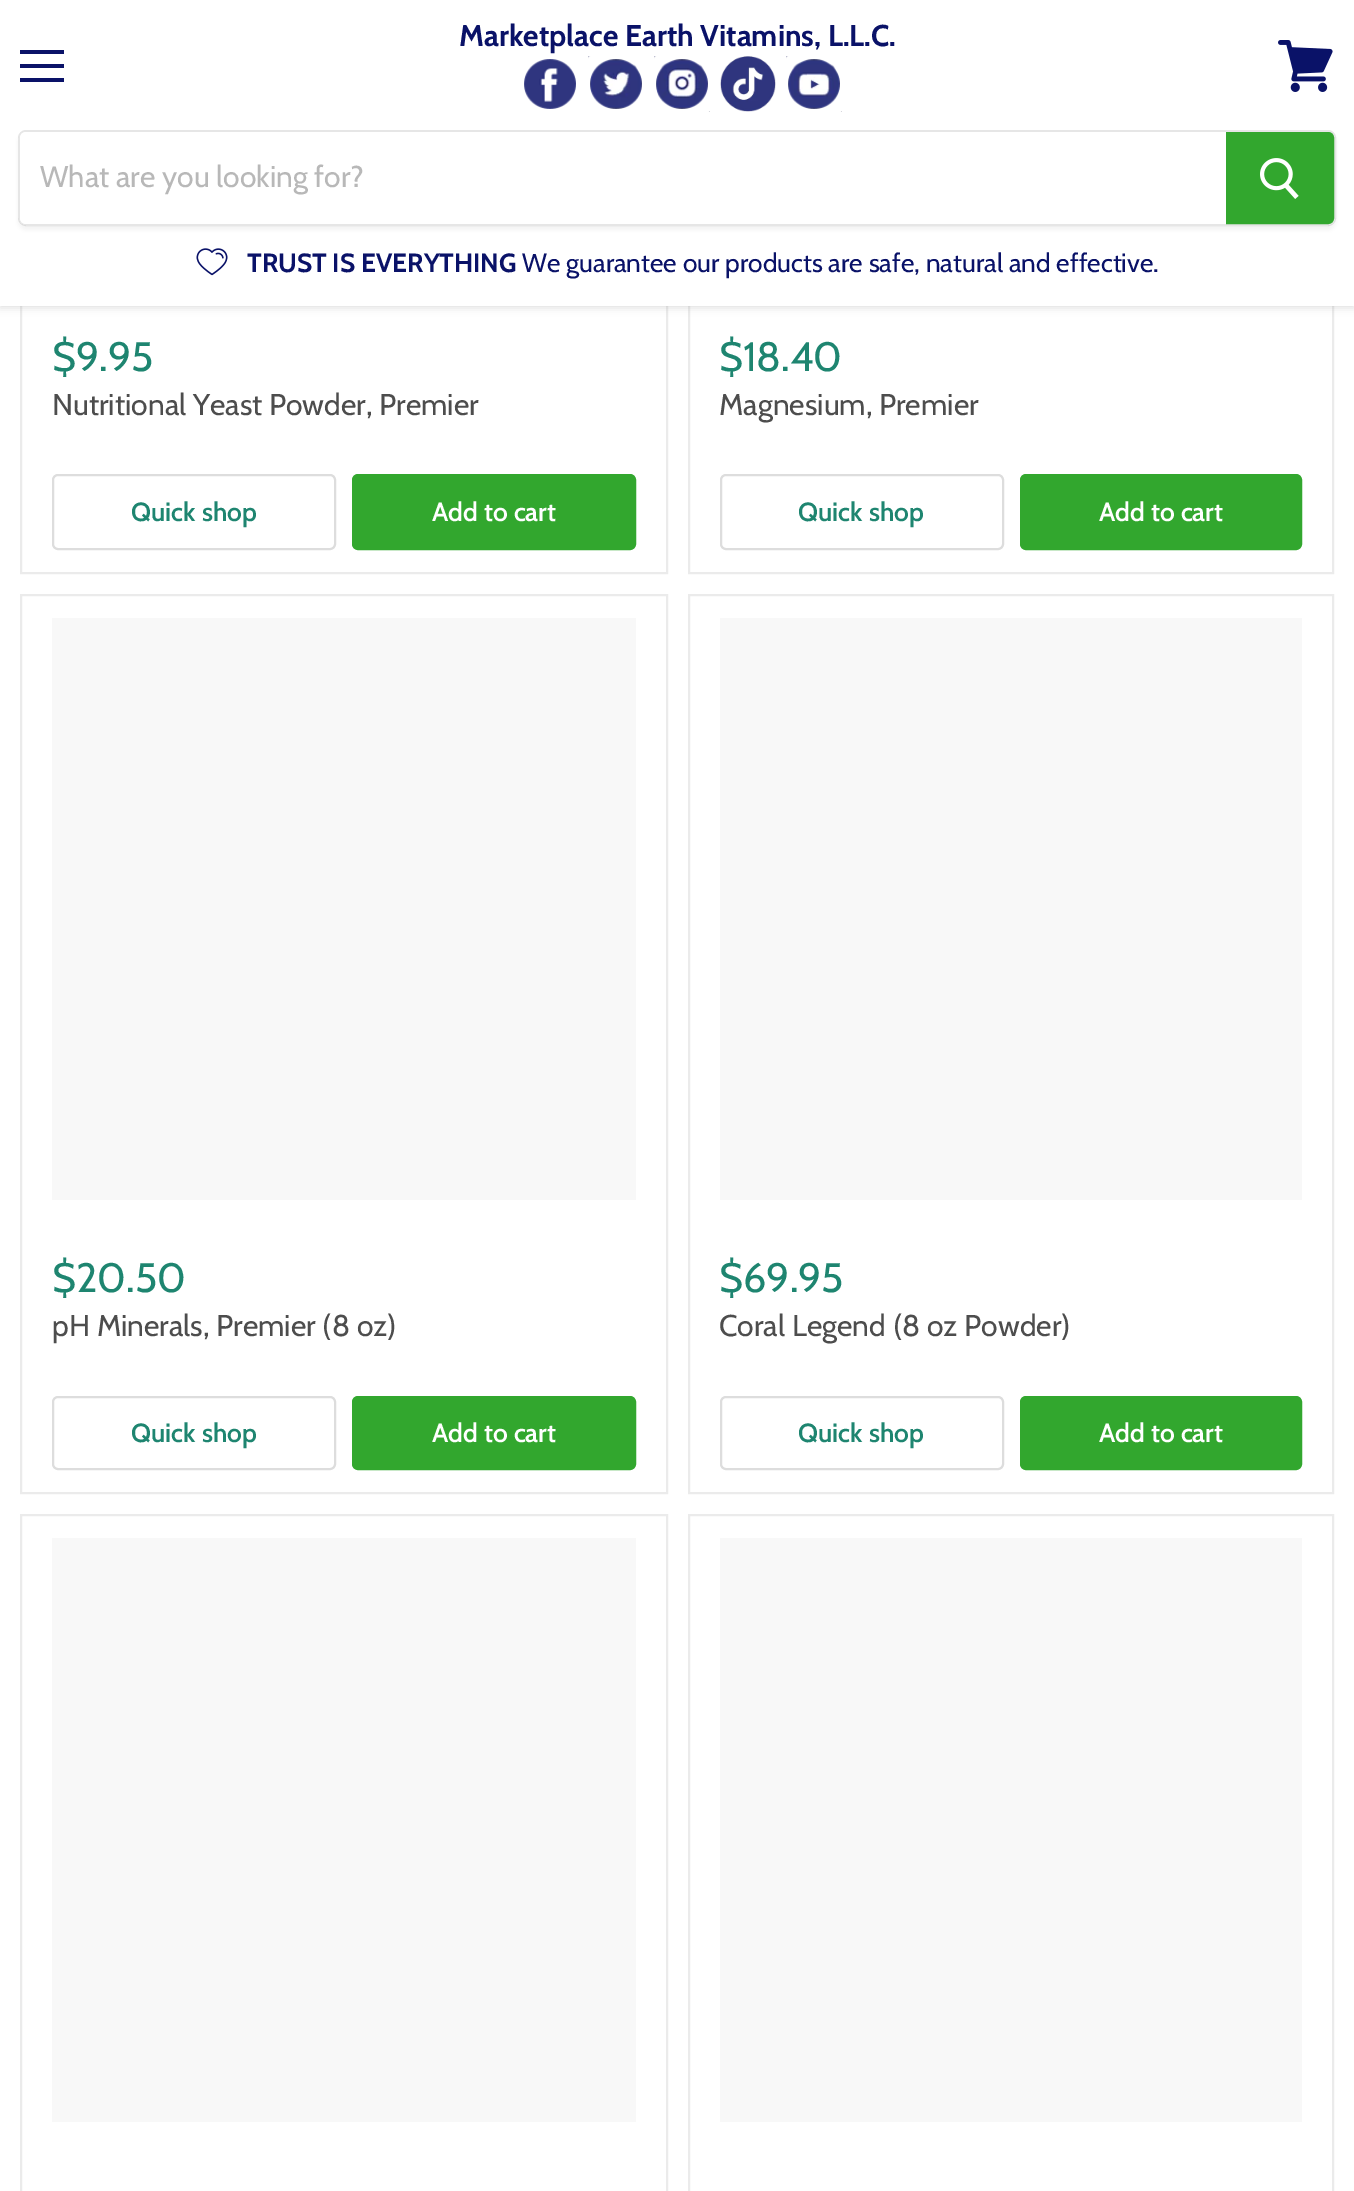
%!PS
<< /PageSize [1354 2191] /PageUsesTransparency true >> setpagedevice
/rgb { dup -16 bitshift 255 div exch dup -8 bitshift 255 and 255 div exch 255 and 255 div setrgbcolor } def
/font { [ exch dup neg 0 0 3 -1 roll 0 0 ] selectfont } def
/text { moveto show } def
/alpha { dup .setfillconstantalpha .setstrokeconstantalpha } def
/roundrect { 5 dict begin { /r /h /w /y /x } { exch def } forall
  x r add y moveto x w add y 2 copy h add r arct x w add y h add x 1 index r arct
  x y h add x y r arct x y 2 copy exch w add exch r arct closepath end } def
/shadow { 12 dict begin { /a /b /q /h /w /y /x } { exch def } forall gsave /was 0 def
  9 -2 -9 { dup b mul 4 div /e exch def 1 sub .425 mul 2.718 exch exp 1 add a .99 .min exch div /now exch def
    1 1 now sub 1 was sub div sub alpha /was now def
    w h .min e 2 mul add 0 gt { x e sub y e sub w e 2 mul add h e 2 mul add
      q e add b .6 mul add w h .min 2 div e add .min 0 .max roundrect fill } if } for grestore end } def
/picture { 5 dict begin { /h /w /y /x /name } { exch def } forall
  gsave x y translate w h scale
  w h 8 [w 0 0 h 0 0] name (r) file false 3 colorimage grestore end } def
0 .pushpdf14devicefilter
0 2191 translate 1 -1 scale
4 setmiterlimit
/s1 { /Cabin-Bold 30 font 16#0A1268 rgb } def
/s2 { /Cabin-Regular 30 font 16#B8B8B8 rgb } def
/s3 { /Cabin-Bold 26.25 font 16#0A1268 rgb } def
/s4 { /Cabin-Regular 26.25 font 16#0A1268 rgb } def
/s5 { /Cabin-Regular 41 font 16#1E8570 rgb } def
/s6 { /Cabin-Regular 30 font 16#4D4D4D rgb } def
/s7 { /Cabin-SemiBold 26.25 font 16#1E8570 rgb } def
/s8 { /Cabin-SemiBold 26.25 font 16#FFFFFF rgb } def
16#FFFFFF rgb
0 0 1354 2191 rectfill
16#EBEBEB rgb
2 setlinewidth
21 -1 646 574 rectstroke
689 -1 644 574 rectstroke
16#808080 rgb
0 2 1354 306 0 4 0.25 shadow
16#FFFFFF rgb
0 0 1354 306 rectfill
s1
(Marketplace Earth Vitamins, L.L.C.) 459 46 text
(pic1.raw) 524 59 52 50 picture
(pic2.raw) 588 56 54 53 picture
(pic3.raw) 654 56 56 56 picture
(pic4.raw) 720 56 56 56 picture
(pic5.raw) 786 56 56 56 picture
gsave
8 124 moveto 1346 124 lineto 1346 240 lineto 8 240 lineto closepath 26 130 moveto 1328 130 lineto 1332.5 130 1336 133.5 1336 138 curveto 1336 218 lineto 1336 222.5 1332.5 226 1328 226 curveto 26 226 lineto 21.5 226 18 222.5 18 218 curveto 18 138 lineto 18 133.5 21.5 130 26 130 curveto closepath eoclip newpath
16#808080 rgb
18 134 1318 96 8 3 0.11 shadow
grestore
0.2 alpha
16#808080 rgb
19 131 1316 94 7 roundrect stroke
1 alpha
16#FFFFFF rgb
26 132 moveto 1226 132 lineto 1226 224 lineto 26 224 lineto 22.5 224 20 221.5 20 218 curveto 20 138 lineto 20 134.5 22.5 132 26 132 curveto closepath fill
s2
(What are you looking for?) 40 187 text
16#32A72E rgb
1227 133 moveto 1328 133 lineto 1331 133 1333 135 1333 138 curveto 1333 218 lineto 1333 221 1331 223 1328 223 curveto 1227 223 lineto closepath gsave fill grestore
stroke
(pic6.raw) 1260 158 39 41 picture
(pic7.raw) 196 248 32 28 picture
s3
(TRUST IS EVERYTHING) 247 272 text
s4
(We guarantee our products are safe, natural and effective.) 522 272 text
(pic8.raw) 1278 40 55 52 picture
20 50 44 4 rectfill
20 64 44 4 rectfill
20 78 44 4 rectfill
s5
($9.95) 52 371 text
s6
(Nutritional Yeast Powder, Premier) 52 415 text
16#DDDDDD rgb
53 475 282 74 5 roundrect stroke
s7
(Quick shop) 131 521 text
16#32A72E rgb
353 475 282 74 5 roundrect gsave fill grestore
stroke
s8
(Add to cart) 432 521 text
s5
($18.40) 719 371 text
s6
(Magnesium, Premier) 719 415 text
16#DDDDDD rgb
721 475 282 74 5 roundrect stroke
s7
(Quick shop) 798 521 text
16#32A72E rgb
1021 475 280 74 5 roundrect gsave fill grestore
stroke
s8
(Add to cart) 1099 521 text
16#EBEBEB rgb
21 595 646 898 rectstroke
16#F8F8F8 rgb
52 618 584 582 rectfill
s5
($20.50) 52 1292 text
s6
(pH Minerals, Premier \(8 oz\)) 52 1336 text
16#DDDDDD rgb
53 1397 282 72 5 roundrect stroke
s7
(Quick shop) 131 1442 text
16#32A72E rgb
353 1397 282 72 5 roundrect gsave fill grestore
stroke
s8
(Add to cart) 432 1442 text
16#EBEBEB rgb
689 595 644 898 rectstroke
16#F8F8F8 rgb
720 618 582 582 rectfill
s5
($69.95) 719 1292 text
s6
(Coral Legend \(8 oz Powder\)) 719 1336 text
16#DDDDDD rgb
721 1397 282 72 5 roundrect stroke
s7
(Quick shop) 798 1442 text
16#32A72E rgb
1021 1397 280 72 5 roundrect gsave fill grestore
stroke
s8
(Add to cart) 1099 1442 text
16#EBEBEB rgb
21 1515 646 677 rectstroke
16#F8F8F8 rgb
52 1538 584 584 rectfill
16#EBEBEB rgb
689 1515 644 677 rectstroke
16#F8F8F8 rgb
720 1538 582 584 rectfill
.poppdf14devicefilter showpage
